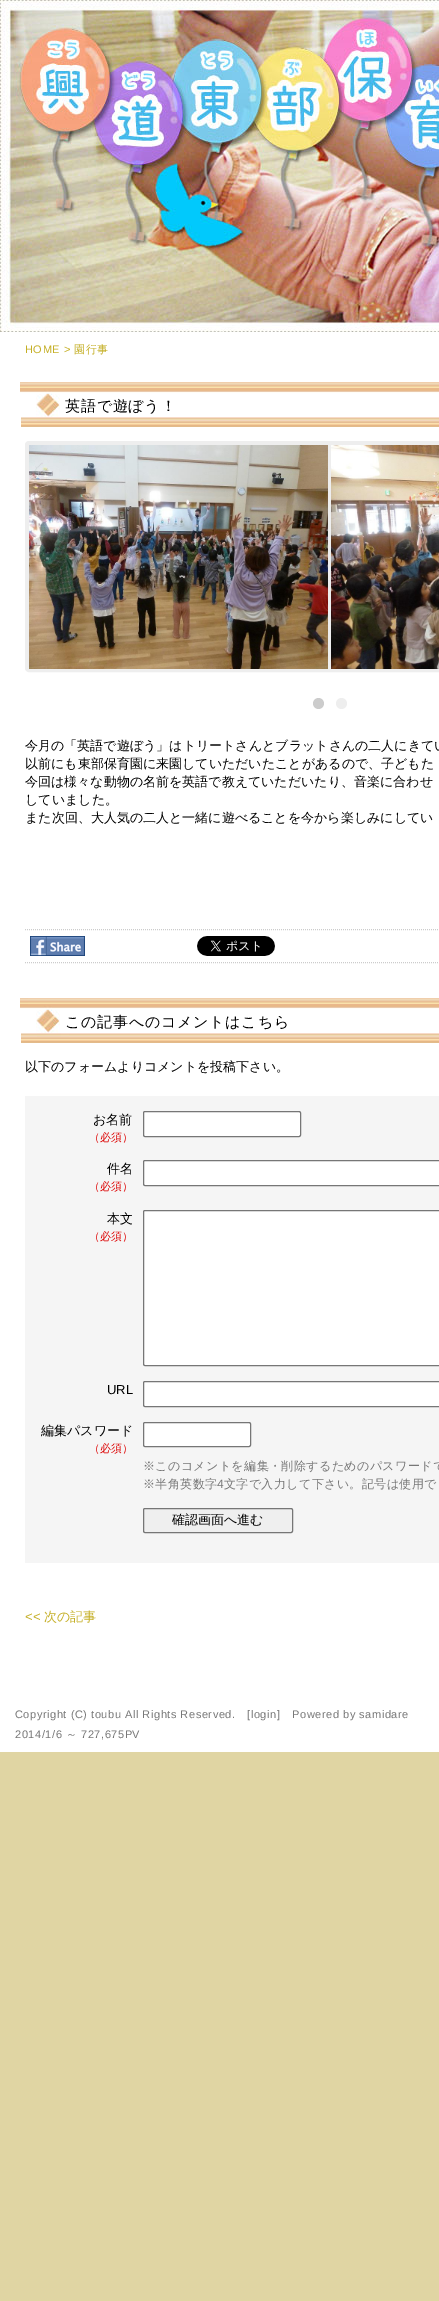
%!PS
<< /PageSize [439 2301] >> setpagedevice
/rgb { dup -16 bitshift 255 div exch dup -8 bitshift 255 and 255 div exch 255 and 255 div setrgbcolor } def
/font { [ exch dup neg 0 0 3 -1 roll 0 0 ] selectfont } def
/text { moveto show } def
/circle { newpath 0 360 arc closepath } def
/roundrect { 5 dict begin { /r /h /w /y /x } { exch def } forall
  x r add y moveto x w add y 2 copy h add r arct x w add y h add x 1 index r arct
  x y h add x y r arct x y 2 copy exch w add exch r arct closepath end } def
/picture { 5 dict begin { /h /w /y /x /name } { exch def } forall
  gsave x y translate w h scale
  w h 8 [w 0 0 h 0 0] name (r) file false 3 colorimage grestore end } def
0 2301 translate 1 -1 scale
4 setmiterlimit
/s1 { /WenQuanYiZenHei-Medium 13 font 16#000000 rgb } def
/s2 { /WenQuanYiZenHei-Medium 11 font 16#DD0000 rgb } def
/s3 { /LiberationSans-Regular 13 font 16#000000 rgb } def
/s4 { /LiberationSans-Regular 13 font 16#C5AF25 rgb } def
/s5 { /WenQuanYiZenHei-Medium 13 font 16#C5AF25 rgb } def
16#E0D5A3 rgb
0 0 439 2301 rectfill
16#FFFFFF rgb
0 332 439 1420 rectfill
(pic1.raw) 0 0 439 332 picture
/LiberationSans-Regular 11 font
16#C5AF25 rgb
25 353 moveto 0.55 0 (HOME >) ashow
/WenQuanYiZenHei-Medium 11 font
74 353 moveto 0.55 0 (園行事) ashow
(pic2.raw) 20 382 419 45 picture
/WenQuanYiZenHei-Medium 15 font
16#000000 rgb
65 411 moveto 0.75 0 (英語で遊ぼう！) ashow
16#EEEEEE rgb
26.5 442.5 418 228 2.5 roundrect gsave fill grestore
3 setlinewidth
stroke
(pic3.raw) 29 445 299 224 picture
(pic4.raw) 331 445 108 224 picture
(pic5.raw) 29 537 25 26 picture
16#CCCCCC rgb
318.5 703.5 5.5 circle fill
16#EEEEEE rgb
341.5 703.5 5.5 circle fill
s1
(今月の「英語で遊ぼう」はトリートさんとブラットさんの二人にきてい) 25 750 text
(以前にも東部保育園に来園していただいたことがあるので、子どもた) 25 768 text
(今回は様々な動物の名前を英語で教えていただいたり、音楽に合わせ) 25 786 text
(していました。) 25 804 text
(また次回、大人気の二人と一緒に遊べることを今から楽しみにしてい) 25 822 text
16#CCCCCC rgb
1 setlinewidth
[1 1] 0 setdash
25 929.5 moveto 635 929.5 lineto stroke
25 962.5 moveto 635 962.5 lineto stroke
(pic6.raw) 30 936 55 20 picture
(pic7.raw) 197 936 78 20 picture
(pic2.raw) 20 998 419 45 picture
/WenQuanYiZenHei-Medium 15 font
16#000000 rgb
65 1027 moveto 0.75 0 (この記事へのコメントはこちら) ashow
s1
(以下のフォームよりコメントを投稿下さい。) 25 1071 text
16#F5F5F5 rgb
25 1096 414 467 rectfill
s1
(お名前) 93 1124 text
s2
(（必須）) 89 1141 text
16#FFFFFF rgb
143.5 1111.5 157 25 1.5 roundrect gsave fill grestore
16#767676 rgb
[] 0 setdash
stroke
s1
(件名) 107 1173 text
s2
(（必須）) 89 1190 text
16#FFFFFF rgb
143.5 1160.5 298 25 1.5 roundrect gsave fill grestore
16#767676 rgb
stroke
s1
(本文) 107 1223 text
s2
(（必須）) 89 1240 text
16#FFFFFF rgb
143.5 1210.5 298 155 1.5 roundrect gsave fill grestore
16#767676 rgb
stroke
s3
(URL) 107 1394 text
16#FFFFFF rgb
143.5 1381.5 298 25 1.5 roundrect gsave fill grestore
16#767676 rgb
stroke
s1
(編集パスワード) 41 1435 text
s2
(（必須）) 89 1452 text
16#FFFFFF rgb
143.5 1422.5 107 24 1.5 roundrect gsave fill grestore
16#767676 rgb
stroke
/WenQuanYiZenHei-Medium 12 font
16#777777 rgb
143 1470 moveto 0.4 0 (※このコメントを編集・削除するためのパスワードで) ashow
143 1488 moveto 0.4 0 (※半角英数字) ashow
/LiberationSans-Regular 12 font
217 1488 moveto 0.4 0 (4) ashow
/WenQuanYiZenHei-Medium 12 font
224 1488 moveto 0.4 0 (文字で入力して下さい。記号は使用で) ashow
16#EFEFEF rgb
143.5 1508.5 149 24 1.5 roundrect gsave fill grestore
16#767676 rgb
stroke
s1
(確認画面へ進む) 172 1524 text
s4
(<<) 25 1621 text
s5
(次の記事) 44 1621 text
/LiberationSans-Regular 11 font
16#777777 rgb
15 1718 moveto 0.55 0 (Copyright \(C\) toubu All Rights Reserved.) ashow
247 1718 moveto 0.55 0 ([login]) ashow
292 1718 moveto 0.55 0 (Powered by samidare) ashow
15 1738 moveto 0.55 0 (2014/1/6) ashow
/WenQuanYiZenHei-Medium 11 font
66 1738 moveto 0.55 0 (～) ashow
/LiberationSans-Regular 11 font
81 1738 moveto 0.55 0 (727,675PV) ashow
showpage
